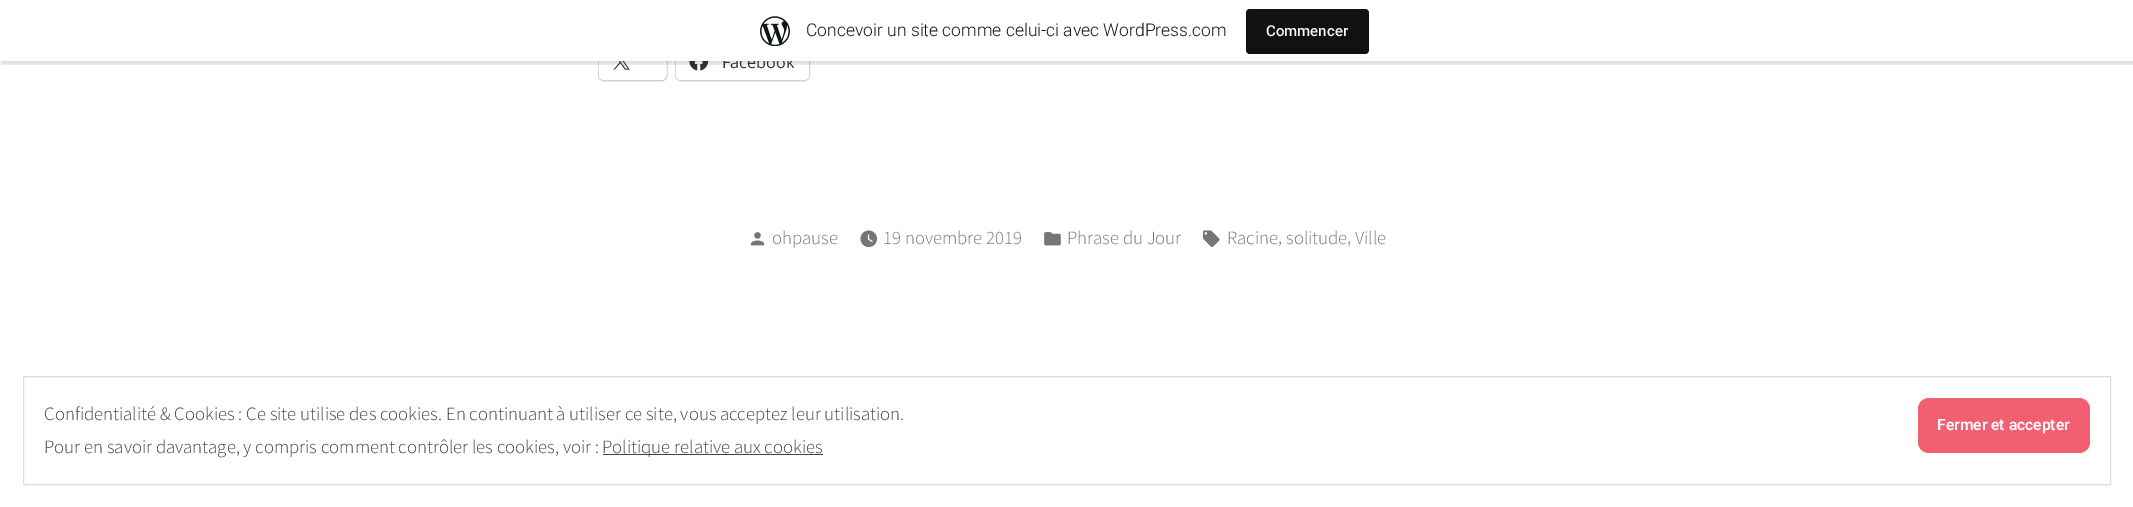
%!PS
<< /PageSize [2133 507] /PageUsesTransparency true >> setpagedevice
/rgb { dup -16 bitshift 255 div exch dup -8 bitshift 255 and 255 div exch 255 and 255 div setrgbcolor } def
/font { [ exch dup neg 0 0 3 -1 roll 0 0 ] selectfont } def
/text { moveto show } def
/alpha { dup .setfillconstantalpha .setstrokeconstantalpha } def
/roundrect { 5 dict begin { /r /h /w /y /x } { exch def } forall
  x r add y moveto x w add y 2 copy h add r arct x w add y h add x 1 index r arct
  x y h add x y r arct x y 2 copy exch w add exch r arct closepath end } def
/shadow { 12 dict begin { /a /b /q /h /w /y /x } { exch def } forall gsave /was 0 def
  9 -2 -9 { dup b mul 4 div /e exch def 1 sub .425 mul 2.718 exch exp 1 add a .99 .min exch div /now exch def
    1 1 now sub 1 was sub div sub alpha /was now def
    w h .min e 2 mul add 0 gt { x e sub y e sub w e 2 mul add h e 2 mul add
      q e add b .6 mul add w h .min 2 div e add .min 0 .max roundrect fill } if } for grestore end } def
/picture { 5 dict begin { /h /w /y /x /name } { exch def } forall
  gsave x y translate w h scale
  w h 8 [w 0 0 h 0 0] name (r) file false 3 colorimage grestore end } def
0 .pushpdf14devicefilter
0 507 translate 1 -1 scale
4 setmiterlimit
/s1 { /OpenSans-Regular 16.25 font 16#2C3338 rgb } def
/s2 { /Roboto-Light 17.5 font 16#171717 rgb } def
/s3 { /Roboto-Medium 15 font 16#F6F7F7 rgb } def
/s4 { /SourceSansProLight-Light 18.75 font 16#767676 rgb } def
/s5 { /SourceSansProLight-Light 18.75 font 16#444444 rgb } def
/s6 { /Roboto-SemiBold 15.6 font 16#FFFFFF rgb } def
16#FFFFFF rgb
0 0 2133 507 rectfill
16#E0E0E0 rgb
598.5 41.5 69 39 5.5 roundrect stroke
16#000000 rgb
599 44 67 37 5 1 0.12 shadow
16#FFFFFF rgb
599 43 67 37 5 roundrect fill
(pic2.raw) 613 61 17 9 picture
16#E0E0E0 rgb
675.5 41.5 134 39 5.5 roundrect stroke
16#000000 rgb
676 44 133 37 5 1 0.12 shadow
16#FFFFFF rgb
676 43 133 37 5 roundrect fill
(pic3.raw) 689 61 20 10 picture
16#000000 rgb
0 1 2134 62 0 1 0.05 shadow
0.08 alpha
1 61 moveto 1 65 lineto 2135 65 lineto 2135 4 lineto 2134 4 lineto 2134 61 lineto closepath fill
1 alpha
s1
(Facebook) 722 68 text
16#FFFFFF rgb
0 0 2133 61 rectfill
(pic1.raw) 760 16 30 30 picture
s2
(Concevoir un site comme celui-ci avec WordPress.com) 806 36 text
16#111111 rgb
1246 9 123 45 4 roundrect fill
s3
(Commencer) 1266 36 text
(pic4.raw) 750 232 15 14 picture
s4
(ohpause) 772 244 text
(pic5.raw) 860 230 18 18 picture
(19 novembre 2019) 883 244 text
(pic6.raw) 1044 232 17 14 picture
(Phrase du Jour) 1067 244 text
(pic7.raw) 1202 230 18 17 picture
(Racine) 1227 244 text
(,) 1278 243 text
(solitude) 1286 244 text
(,) 1347 243 text
(Ville) 1355 244 text
16#DDDDDD rgb
23.5 376.5 2087 108 rectstroke
s5
(Confidentialité & Cookies : Ce site utilise des cookies. En continuant à utiliser ce site, vous acceptez leur utilisation.) 44 420 text
16#F25F70 rgb
1918 398 172 55 11 roundrect fill
s6
(Fermer et accepter) 1937 430 text
s5
(Pour en savoir davantage, y compris comment contrôler les cookies, voir :) 44 453 text
603 454 220 1 rectfill
(Politique relative aux cookies) 602 453 text
.poppdf14devicefilter showpage
